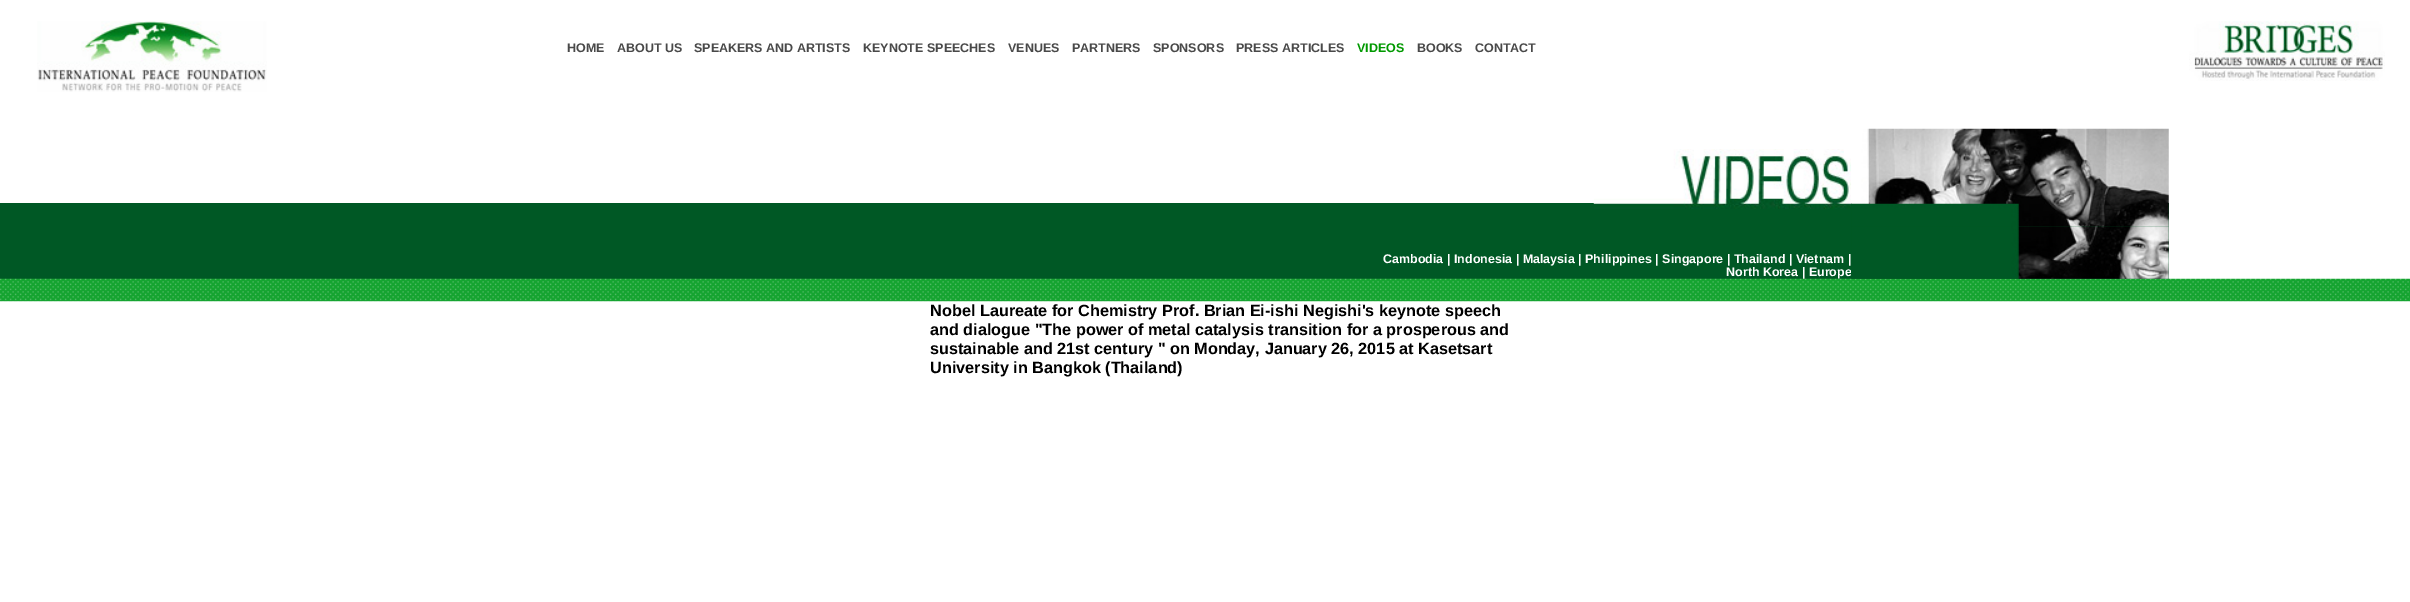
%!PS
<< /PageSize [2410 602] >> setpagedevice
/rgb { dup -16 bitshift 255 div exch dup -8 bitshift 255 and 255 div exch 255 and 255 div setrgbcolor } def
/font { [ exch dup neg 0 0 3 -1 roll 0 0 ] selectfont } def
/text { moveto show } def
/picture { 5 dict begin { /h /w /y /x /name } { exch def } forall
  gsave x y translate w h scale
  w h 8 [w 0 0 h 0 0] name (r) file false 3 colorimage grestore end } def
0 602 translate 1 -1 scale
4 setmiterlimit
/s1 { /LiberationSans-Bold 12.5 font 16#494949 rgb } def
/s2 { /LiberationSans-Bold 12.5 font 16#009900 rgb } def
/s3 { /LiberationSans-Bold 12.5 font 16#FFFFFF rgb } def
/s4 { /LiberationSans-Bold 16.25 font 16#000000 rgb } def
16#FFFFFF rgb
0 0 2410 602 rectfill
(pic1.raw) 37 21 230 71 picture
s1
(HOME) 567 52 text
(ABOUT US) 617 52 text
(SPEAKERS AND ARTISTS) 694 52 text
(KEYNOTE SPEECHES) 863 52 text
(VENUES) 1008 52 text
(PARTNERS) 1072 52 text
(SPONSORS) 1153 52 text
(PRESS ARTICLES) 1236 52 text
s2
(VIDEOS) 1357 52 text
s1
(BOOKS) 1417 52 text
(CONTACT) 1475 52 text
(pic2.raw) 2189 21 196 60 picture
16#005825 rgb
0 203 2169 76 rectfill
(pic3.raw) 1593 149 259 60 picture
(pic4.raw) 1851 128 318 99 picture
s3
(Cambodia | Indonesia | Malaysia | Philippines | Singapore | Thailand | Vietnam |) 1383 263 text
(pic6.raw) 0 278 2410 24 picture
(North Korea | Europe) 1726 276 text
(pic5.raw) 1851 226 318 53 picture
s4
(Nobel Laureate for Chemistry Prof. Brian Ei-ishi Negishi's keynote speech) 930 316 text
(and dialogue "The power of metal catalysis transition for a prosperous and) 930 335 text
(sustainable and 21st century " on Monday, January 26, 2015 at Kasetsart) 930 354 text
(University in Bangkok \(Thailand\)) 930 373 text
showpage
